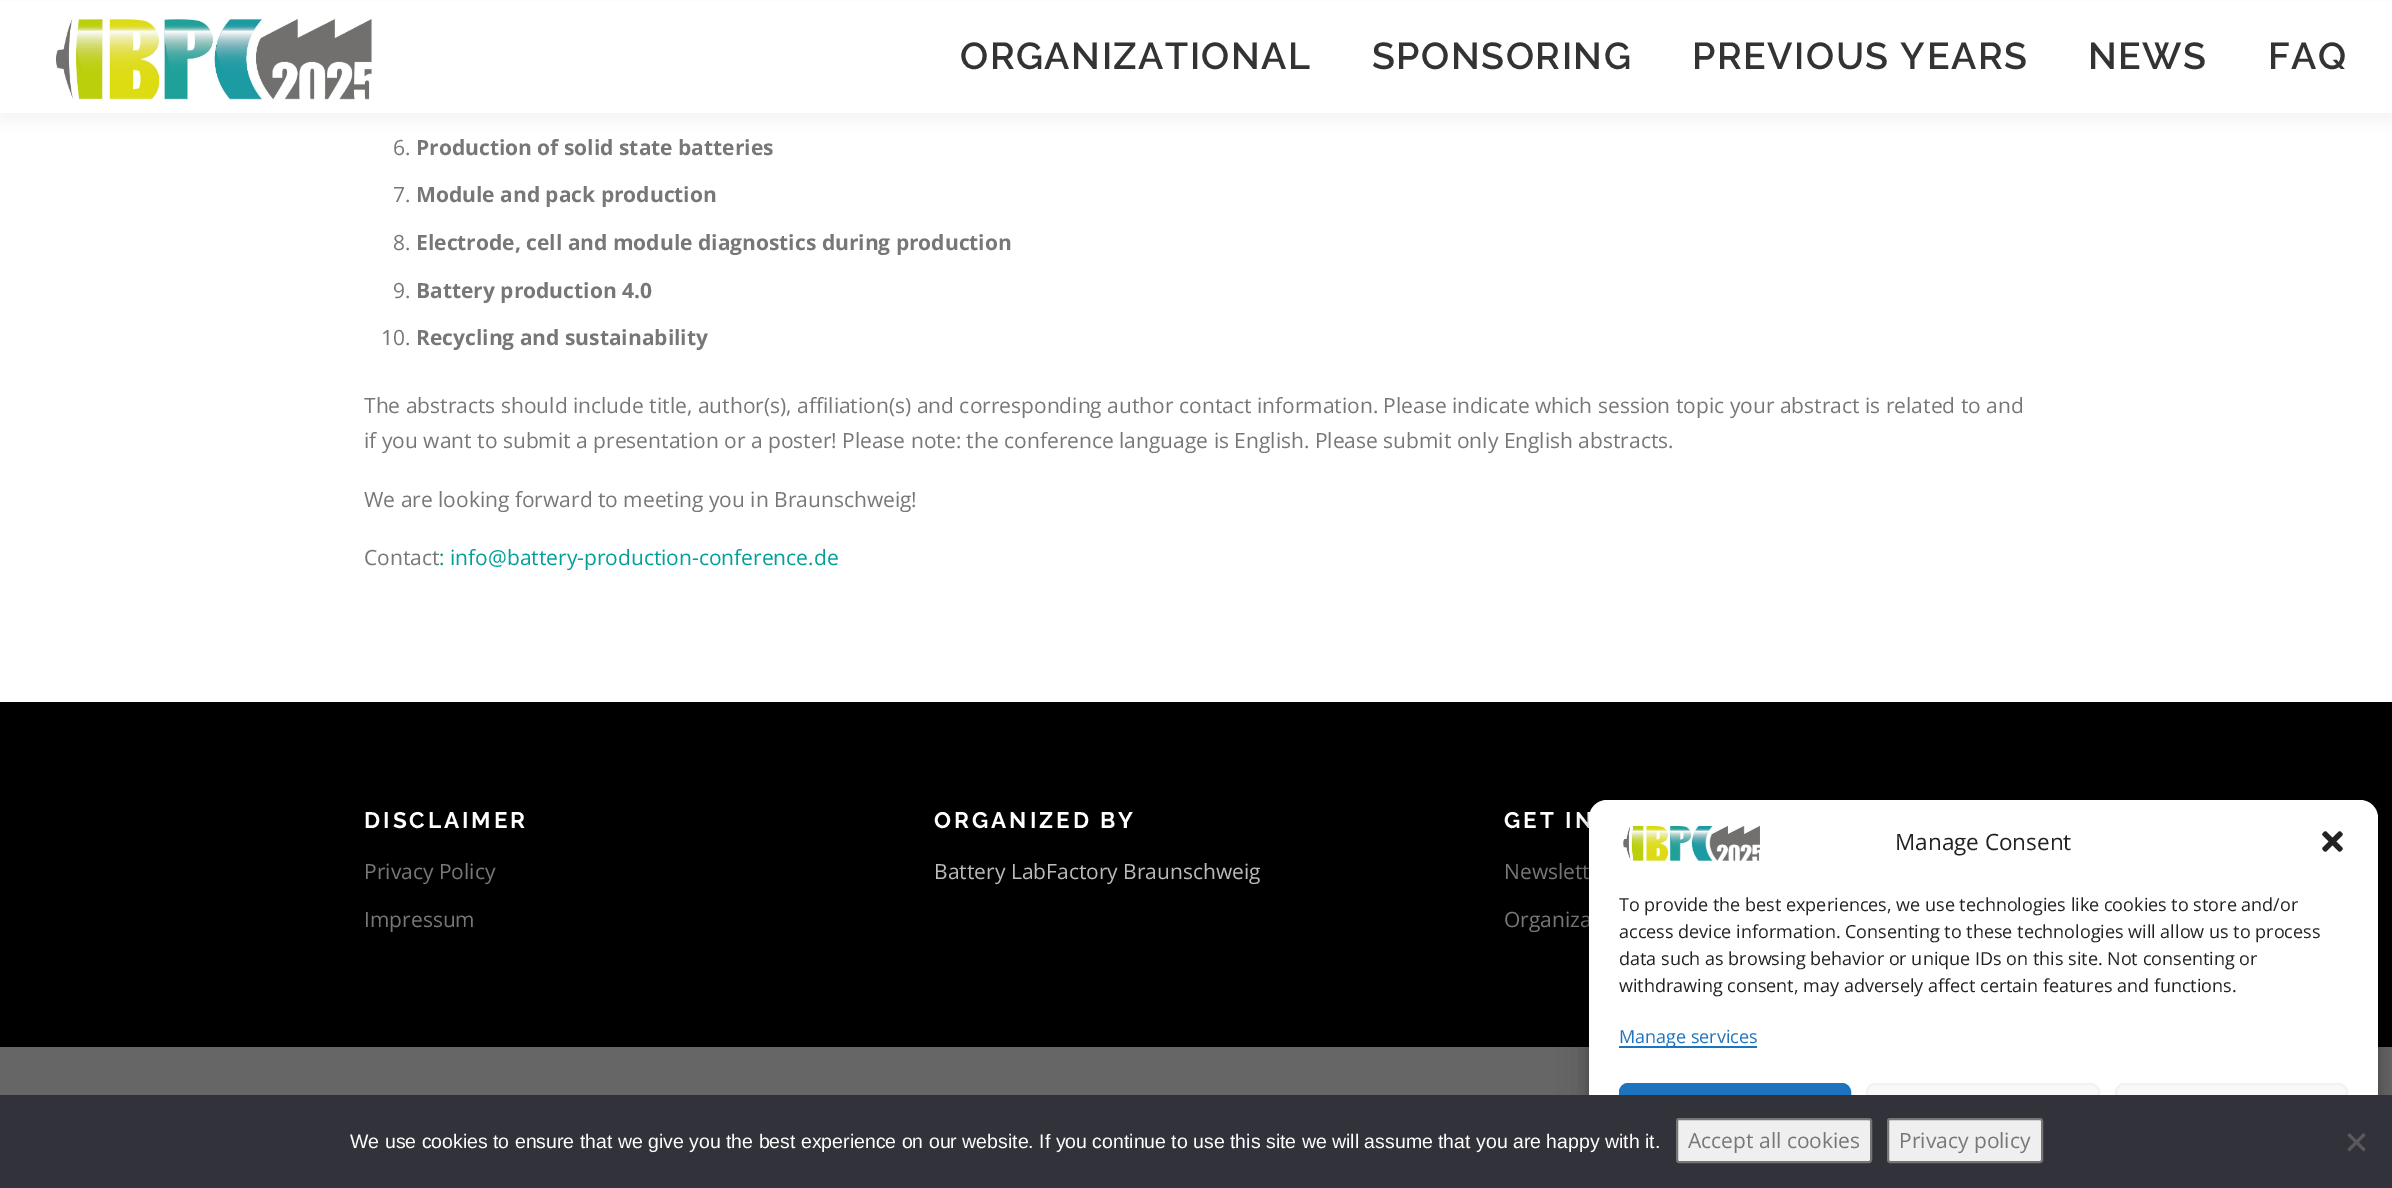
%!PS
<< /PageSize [2392 1188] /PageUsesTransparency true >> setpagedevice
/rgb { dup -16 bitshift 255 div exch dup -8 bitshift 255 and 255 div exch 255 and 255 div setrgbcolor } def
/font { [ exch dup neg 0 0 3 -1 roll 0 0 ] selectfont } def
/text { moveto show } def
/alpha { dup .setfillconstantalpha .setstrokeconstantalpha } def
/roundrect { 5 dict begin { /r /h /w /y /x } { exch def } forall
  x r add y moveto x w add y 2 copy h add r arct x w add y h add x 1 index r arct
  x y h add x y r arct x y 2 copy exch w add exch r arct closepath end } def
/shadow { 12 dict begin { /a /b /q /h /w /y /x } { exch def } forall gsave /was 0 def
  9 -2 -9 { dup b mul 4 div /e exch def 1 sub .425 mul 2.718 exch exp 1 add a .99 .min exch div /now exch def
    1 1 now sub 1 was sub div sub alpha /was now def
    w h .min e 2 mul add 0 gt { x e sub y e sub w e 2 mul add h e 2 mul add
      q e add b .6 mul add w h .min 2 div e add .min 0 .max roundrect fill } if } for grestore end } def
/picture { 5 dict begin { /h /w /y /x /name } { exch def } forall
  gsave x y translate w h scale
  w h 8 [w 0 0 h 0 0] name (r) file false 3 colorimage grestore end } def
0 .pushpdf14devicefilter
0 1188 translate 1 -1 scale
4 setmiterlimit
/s1 { /OpenSans-Regular 21 font 16#777777 rgb } def
/s2 { /OpenSans-Bold 21 font 16#777777 rgb } def
/s3 { /OpenSans-Regular 21 font 16#00A099 rgb } def
/s4 { /OpenSans-Regular 21 font 16#BBBBBB rgb } def
/s5 { /OpenSans-Regular 22.5 font 16#222222 rgb } def
/s6 { /OpenSans-Regular 18 font 16#222222 rgb } def
/s7 { /OpenSans-Regular 18 font 16#1E73BE rgb } def
/s8 { /LiberationSans-Regular 19.5 font 16#FFFFFF rgb } def
16#FFFFFF rgb
0 0 2392 1188 rectfill
16#323232 rgb
0 8 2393 112 0 7.5 0.06 shadow
16#FFFFFF rgb
0 2 2392 111 rectfill
(pic1.raw) 56 18 316 82 picture
/Raleway-SemiBold 37.5 font
16#333333 rgb
960 69 moveto 1.5 0 (ORGANIZATIONAL) ashow
1372 69 moveto 1.5 0 (SPONSORING) ashow
1692 69 moveto 1.5 0 (PREVIOUS YEARS) ashow
2088 69 moveto 1.5 0 (NEWS) ashow
2268 69 moveto 1.5 0 (FAQ) ashow
s1
(6.) 393 155 text
s2
(Production of solid state batteries) 416 155 text
s1
(7.) 393 202 text
s2
(Module and pack production) 416 202 text
s1
(8.) 393 250 text
s2
(Electrode, cell and module diagnostics during production) 416 250 text
s1
(9.) 393 298 text
s2
(Battery production 4.0) 416 298 text
s1
(10.) 381 345 text
s2
(Recycling and sustainability) 416 345 text
s1
(The abstracts should include title, author\(s\), affiliation\(s\) and corresponding author contact information. Please indicate which session topic your abstract is related to and) 364 413 text
(if you want to submit a presentation or a poster! Please note: the conference language is English. Please submit only English abstracts.) 364 448 text
(We are looking forward to meeting you in Braunschweig!) 364 507 text
(Contact) 364 565 text
s3
(: info@battery-production-conference.de) 439 565 text
16#000000 rgb
0 702 2392 345 rectfill
/Raleway-Bold 22.5 font
16#FFFFFF rgb
364 828 moveto 3 0 (DISCLAIMER) ashow
s1
(Privacy Policy) 364 879 text
(Impressum) 364 927 text
/Raleway-Bold 22.5 font
16#FFFFFF rgb
934 828 moveto 3 0 (ORGANIZED BY) ashow
s4
(Battery LabFactory Braunschweig) 934 879 text
/Raleway-Bold 22.5 font
16#FFFFFF rgb
1504 828 moveto 3 0 (GET IN) ashow
s1
(Newslett) 1504 879 text
(Organiza) 1504 927 text
16#666666 rgb
0 1047 2392 48 rectfill
16#000000 rgb
1589 809 789 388 18 4.5 0.23 shadow
1589 815 789 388 18 15 0.19 shadow
16#FFFFFF rgb
1589 800 789 388 18 roundrect fill
(pic2.raw) 1623 825 137 36 picture
s5
(Manage Consent) 1895 850 text
(pic3.raw) 2322 831 21 21 picture
s6
(To provide the best experiences, we use technologies like cookies to store and/or) 1619 911 text
(access device information. Consenting to these technologies will allow us to process) 1619 938 text
(data such as browsing behavior or unique IDs on this site. Not consenting or) 1619 965 text
(withdrawing consent, may adversely affect certain features and functions.) 1619 992 text
16#1E73BE rgb
1619 1046 138 2 rectfill
(Manage services) 1619 1043 text
1620 1084 230 66 8 roundrect gsave fill grestore
2 setlinewidth
stroke
16#F9F9F9 rgb
1867 1084 232 66 8 roundrect gsave fill grestore
16#F2F2F2 rgb
stroke
16#F9F9F9 rgb
2116 1084 231 66 8 roundrect gsave fill grestore
16#F2F2F2 rgb
stroke
16#32323A rgb
0 1095 2392 93 rectfill
s8
(We use cookies to ensure that we give you the best experience on our website. If you continue to use this site we will assume that you are happy with it.) 350 1148 text
16#EFEFEF rgb
1677 1119 194 43 2 roundrect gsave fill grestore
16#767676 rgb
stroke
s1
(Accept all cookies) 1688 1148 text
16#EFEFEF rgb
1888 1119 154 43 2 roundrect gsave fill grestore
16#767676 rgb
stroke
s1
(Privacy policy) 1899 1148 text
16#59595D rgb
2363.5 1133 moveto 2365.5 1135.5 lineto 2349.5 1151.5 lineto 2347.5 1149 lineto closepath fill
2347.5 1135.5 moveto 2349.5 1133 lineto 2365.5 1149 lineto 2363.5 1151.5 lineto closepath fill
.poppdf14devicefilter showpage
